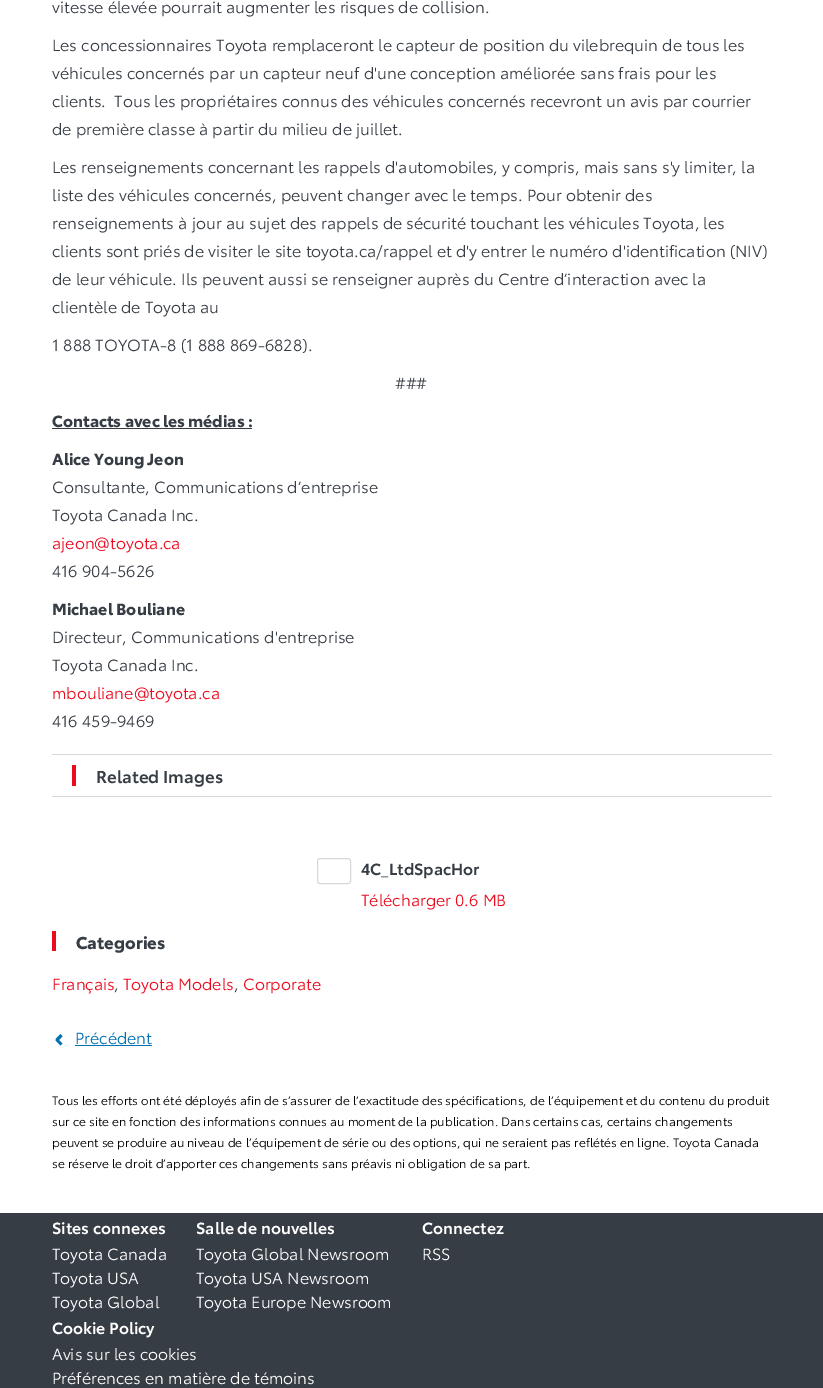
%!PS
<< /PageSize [823 1388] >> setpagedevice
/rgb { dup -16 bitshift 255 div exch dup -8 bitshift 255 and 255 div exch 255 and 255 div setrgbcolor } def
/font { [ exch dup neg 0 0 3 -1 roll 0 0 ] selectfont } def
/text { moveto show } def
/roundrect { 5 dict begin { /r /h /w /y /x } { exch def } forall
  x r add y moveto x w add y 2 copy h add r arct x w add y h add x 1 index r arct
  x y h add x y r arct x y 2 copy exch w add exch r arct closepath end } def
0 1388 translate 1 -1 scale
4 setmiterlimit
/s1 { /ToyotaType-Regular 16 font 16#373D45 rgb } def
/s2 { /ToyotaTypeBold-Bold 16 font 16#373D45 rgb } def
/s3 { /ToyotaType-Regular 16 font 16#EB0A1E rgb } def
/s4 { /ToyotaType-SemiBold 17 font 16#373D45 rgb } def
/s5 { /ToyotaType-SemiBold 16 font 16#373D45 rgb } def
/s6 { /ToyotaTypeBold-Bold 17 font 16#373D45 rgb } def
/s7 { /ToyotaType-Regular 16 font 16#0071B3 rgb } def
/s8 { /ToyotaType-Regular 12 font 16#000000 rgb } def
/s9 { /ToyotaType-SemiBold 16 font 16#FFFFFF rgb } def
/s10 { /ToyotaType-Regular 16 font 16#FFFFFF rgb } def
16#FFFFFF rgb
0 0 823 1388 rectfill
s1
(vitesse élevée pourrait augmenter les risques de collision.) 52 13 text
(Les concessionnaires Toyota remplaceront le capteur de position du vilebrequin de tous les) 52 51 text
(véhicules concernés par un capteur neuf d'une conception améliorée sans frais pour les) 52 79 text
(clients.  Tous les propriétaires connus des véhicules concernés recevront un avis par courrier) 52 107 text
(de première classe à partir du milieu de juillet.) 52 135 text
(Les renseignements concernant les rappels d'automobiles, y compris, mais sans s'y limiter, la) 52 173 text
(liste des véhicules concernés, peuvent changer avec le temps. Pour obtenir des) 52 201 text
(renseignements à jour au sujet des rappels de sécurité touchant les véhicules Toyota, les) 52 229 text
(clients sont priés de visiter le site toyota.ca/rappel et d'y entrer le numéro d'identification \(NIV\)) 52 257 text
(de leur véhicule. Ils peuvent aussi se renseigner auprès du Centre d’interaction avec la) 52 285 text
(clientèle de Toyota au) 52 313 text
(1 888 TOYOTA-8 \(1 888 869-6828\).) 52 351 text
(###) 395 389 text
s2
(Contacts avec les médias :) 52 427 text
52 428 200 1 rectfill
(Alice Young Jeon) 52 465 text
s1
(Consultante, Communications d’entreprise) 52 493 text
(Toyota Canada Inc.) 52 521 text
s3
(ajeon@toyota.ca) 52 549 text
s1
(416 904-5626) 52 577 text
s2
(Michael Bouliane) 52 615 text
s1
(Directeur, Communications d'entreprise) 52 643 text
(Toyota Canada Inc.) 52 671 text
s3
(mbouliane@toyota.ca) 52 699 text
s1
(416 459-9469) 52 727 text
16#D8D8D8 rgb
52 754 720 1 rectfill
52 796 720 1 rectfill
16#EB0A1E rgb
72 765 4 21 rectfill
s4
(Related Images) 96 783 text
16#D8D8D8 rgb
317.5 858.5 33 25 2.5 roundrect stroke
s5
(4C_LtdSpacHor) 361 875 text
s3
(Télécharger 0.6 MB) 361 906 text
52 931 4 20 rectfill
s6
(Categories) 76 949 text
s3
(Français) 52 990 text
s1
(,) 114 990 text
s3
(Toyota Models) 123 990 text
s1
(,) 234 990 text
s3
(Corporate) 243 990 text
16#0071B3 rgb
62.5 1043.5 moveto 60.5 1045.5 lineto 55.5 1040.5 lineto 57.5 1038.5 lineto closepath fill
62.5 1036.5 moveto 57.5 1041.5 lineto 55.5 1039 lineto 60.5 1034 lineto closepath fill
(Précédent) 75 1044 text
75 1045 77 1 rectfill
s8
(Tous les efforts ont été déployés afin de s’assurer de l’exactitude des spécifications, de l’équipement et du contenu du produit) 52 1105 text
(sur ce site en fonction des informations connues au moment de la publication. Dans certains cas, certains changements) 52 1126 text
(peuvent se produire au niveau de l’équipement de série ou des options, qui ne seraient pas reflétés en ligne. Toyota Canada) 52 1147 text
(se réserve le droit d’apporter ces changements sans préavis ni obligation de sa part.) 52 1168 text
16#373D45 rgb
0 1213 823 175 rectfill
s9
(Sites connexes) 52 1234 text
s10
(Toyota Canada) 52 1260 text
(Toyota USA) 52 1284 text
(Toyota Global) 52 1308 text
s9
(Salle de nouvelles) 196 1234 text
s10
(Toyota Global Newsroom) 196 1260 text
(Toyota USA Newsroom) 196 1284 text
(Toyota Europe Newsroom) 196 1308 text
s9
(Connectez) 422 1234 text
s10
(RSS) 422 1260 text
s9
(Cookie Policy) 52 1334 text
s10
(Avis sur les cookies) 52 1360 text
(Préférences en matière de témoins) 52 1384 text
showpage
